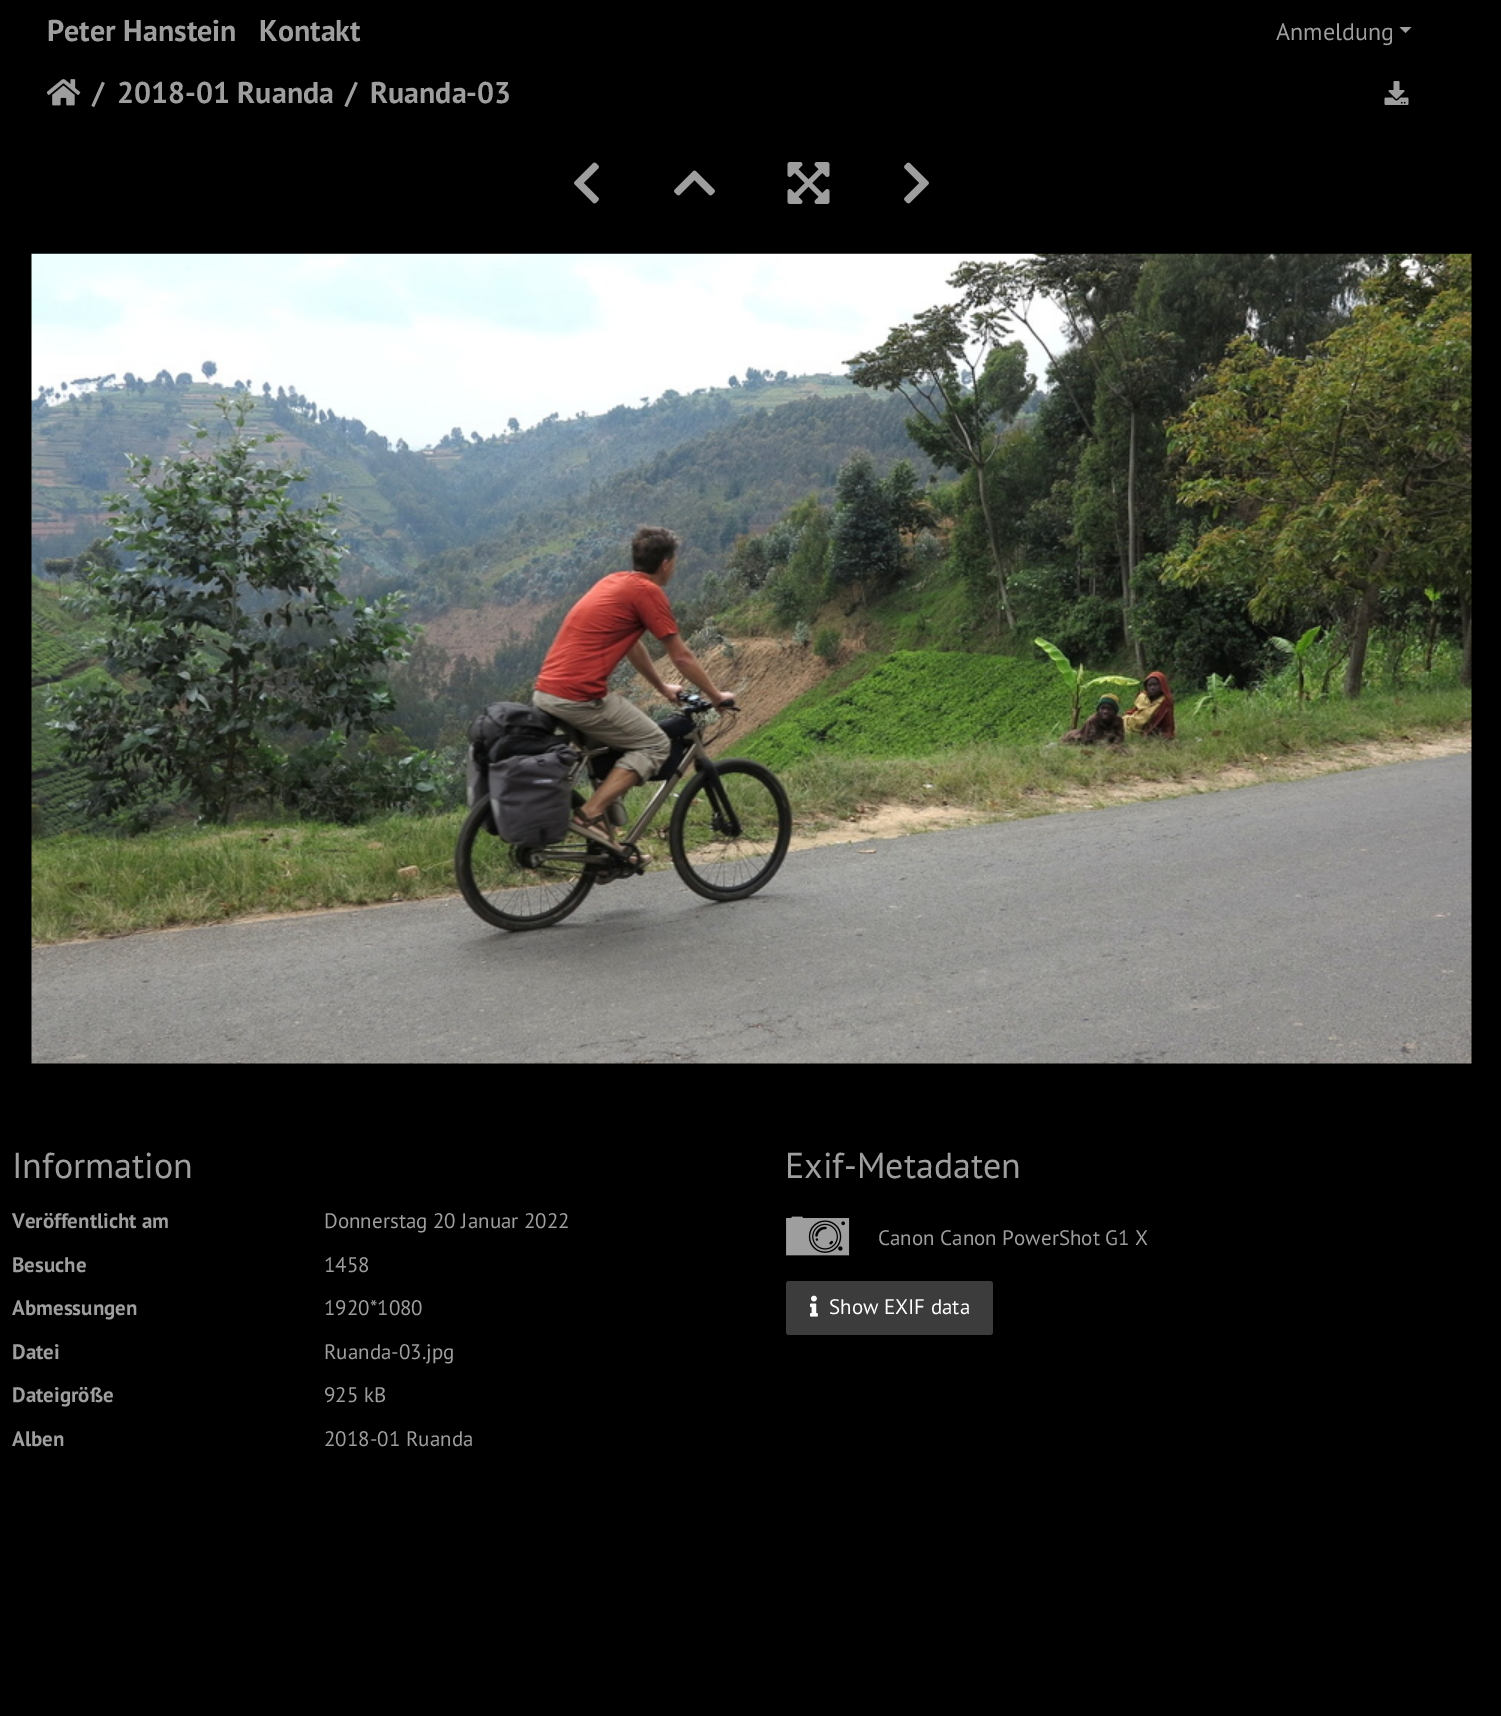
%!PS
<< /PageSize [1501 1716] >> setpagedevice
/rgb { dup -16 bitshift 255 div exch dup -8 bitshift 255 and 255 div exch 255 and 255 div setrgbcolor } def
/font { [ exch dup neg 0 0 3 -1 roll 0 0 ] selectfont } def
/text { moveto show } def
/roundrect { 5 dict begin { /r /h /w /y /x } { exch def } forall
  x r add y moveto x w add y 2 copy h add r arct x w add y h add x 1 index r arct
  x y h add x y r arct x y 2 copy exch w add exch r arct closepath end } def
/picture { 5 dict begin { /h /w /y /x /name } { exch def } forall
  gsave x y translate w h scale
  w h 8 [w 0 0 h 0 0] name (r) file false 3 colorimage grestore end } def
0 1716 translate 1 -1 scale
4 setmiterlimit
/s1 { /PTSans-Bold 30 font 16#9E9E9E rgb } def
/s2 { /PTSans-Regular 24 font 16#9E9E9E rgb } def
/s3 { /PTSans-Regular 36 font 16#9E9E9E rgb } def
/s4 { /PTSans-Bold 21 font 16#9E9E9E rgb } def
/s5 { /PTSans-Regular 21 font 16#9E9E9E rgb } def
/s6 { /PTSans-Regular 21 font 16#FFFFFF rgb } def
16#000000 rgb
0 0 1501 1716 rectfill
s1
(Peter Hanstein) 47 41 text
(Kontakt) 259 41 text
s2
(Anmeldung) 1276 40 text
1399.5 27 moveto 1411.5 27 lineto 1405.5 33 lineto closepath fill
(pic1.raw) 47 79 34 27 picture
s1
(/) 92 103 text
(2018-01 Ruanda) 117 103 text
(/) 345 103 text
(Ruanda-03) 370 103 text
(pic2.raw) 1384 81 25 24 picture
(pic3.raw) 574 162 25 42 picture
(pic4.raw) 674 170 41 26 picture
(pic5.raw) 787 162 43 42 picture
(pic6.raw) 904 162 25 42 picture
(pic7.raw) 31 253 1441 811 picture
s3
(Information) 12 1178 text
s4
(Veröffentlicht am) 12 1228 text
s5
(Donnerstag 20 Januar 2022) 324 1228 text
s4
(Besuche) 12 1272 text
s5
(1458) 324 1272 text
s4
(Abmessungen) 12 1315 text
s5
(1920*1080) 324 1315 text
s4
(Datei) 12 1359 text
s5
(Ruanda-03.jpg) 324 1359 text
s4
(Dateigröße) 12 1402 text
s5
(925 kB) 324 1402 text
s4
(Alben) 12 1446 text
s5
(2018-01 Ruanda) 324 1446 text
s3
(Exif-Metadaten) 785 1178 text
(pic8.raw) 786 1216 64 40 picture
s5
(Canon Canon PowerShot G1 X) 878 1245 text
16#3C3C3C rgb
786 1281 207 54 3 roundrect fill
(pic9.raw) 810 1295 8 22 picture
s6
(Show EXIF data) 829 1314 text
showpage
